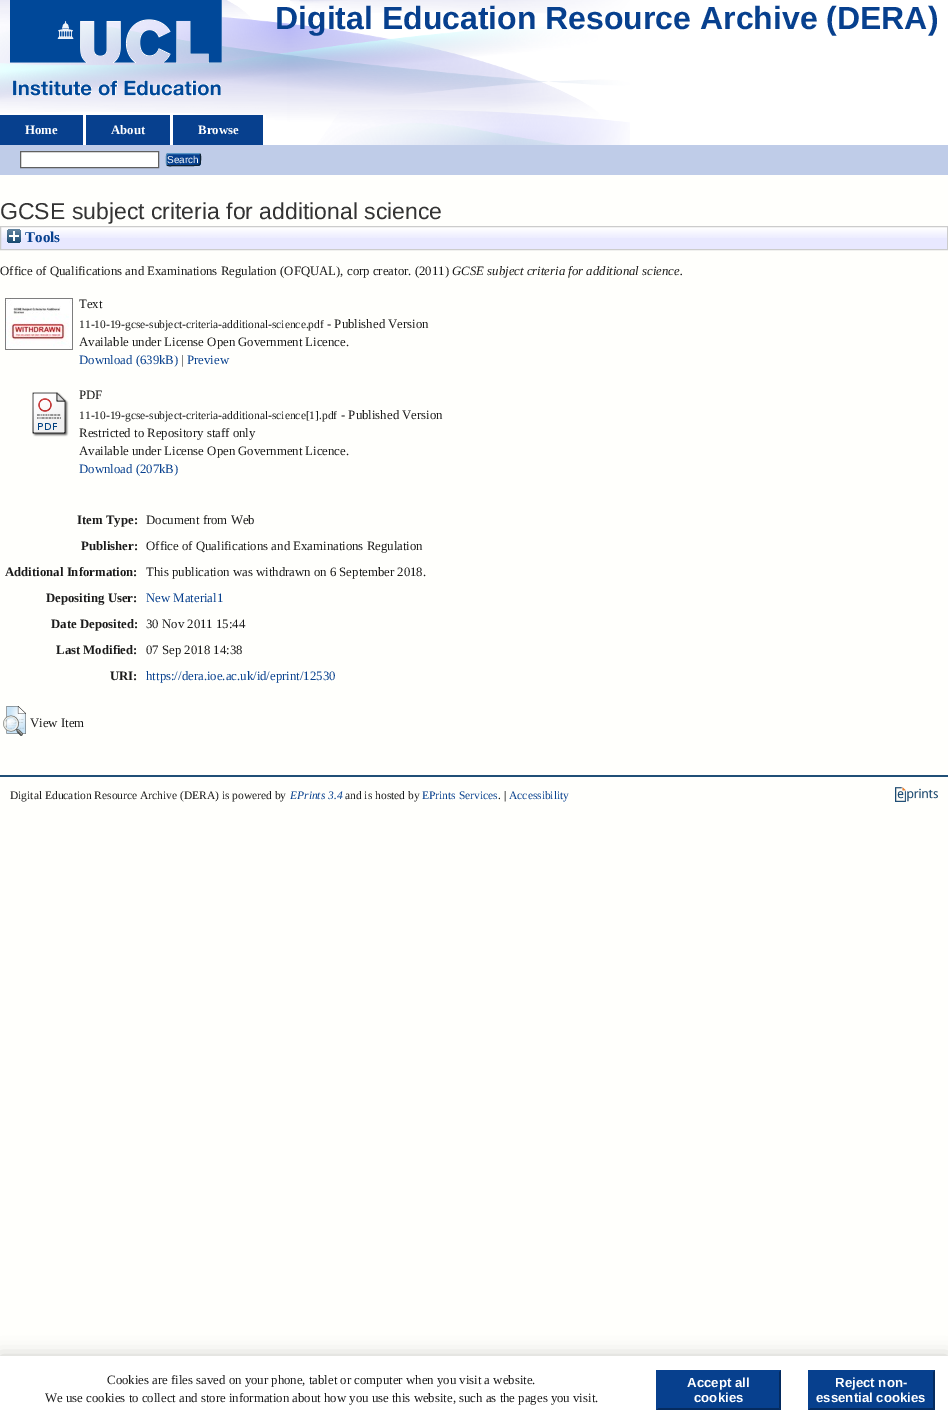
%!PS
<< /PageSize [948 1424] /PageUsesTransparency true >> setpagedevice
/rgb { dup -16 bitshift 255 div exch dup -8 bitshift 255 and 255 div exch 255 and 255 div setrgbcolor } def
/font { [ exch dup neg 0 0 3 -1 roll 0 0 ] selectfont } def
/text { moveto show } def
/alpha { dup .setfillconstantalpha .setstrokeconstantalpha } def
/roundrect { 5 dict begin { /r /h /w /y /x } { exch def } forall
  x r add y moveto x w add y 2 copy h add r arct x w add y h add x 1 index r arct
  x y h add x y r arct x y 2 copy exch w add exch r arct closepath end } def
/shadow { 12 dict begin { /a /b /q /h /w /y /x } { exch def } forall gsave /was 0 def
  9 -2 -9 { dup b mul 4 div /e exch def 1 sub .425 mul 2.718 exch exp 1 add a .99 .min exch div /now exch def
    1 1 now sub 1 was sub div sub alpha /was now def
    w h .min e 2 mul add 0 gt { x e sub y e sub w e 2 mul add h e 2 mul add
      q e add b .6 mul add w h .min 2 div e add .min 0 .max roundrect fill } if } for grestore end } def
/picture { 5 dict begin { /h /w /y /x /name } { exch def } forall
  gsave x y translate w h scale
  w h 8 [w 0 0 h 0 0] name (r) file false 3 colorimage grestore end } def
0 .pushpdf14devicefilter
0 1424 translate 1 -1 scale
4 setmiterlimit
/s1 { /LiberationSans-Bold 32 font 16#07408E rgb } def
/s2 { /LiberationSerif-Bold 12.8 font 16#FFFFFF rgb } def
/s3 { /LiberationSans-Regular 10 font 16#FFFFFF rgb } def
/s4 { /LiberationSans-Regular 23 font 16#333333 rgb } def
/s5 { /LiberationSerif-Bold 15 font 16#07408E rgb } def
/s6 { /LiberationSerif-Regular 12.8 font 16#1A1A1A rgb } def
/s7 { /LiberationSerif-Italic 12.8 font 16#1A1A1A rgb } def
/s8 { /LiberationSerif-Regular 11.5 font 16#1A1A1A rgb } def
/s9 { /LiberationSerif-Regular 12.8 font 16#07408E rgb } def
/s10 { /LiberationSerif-Bold 12.8 font 16#1A1A1A rgb } def
/s11 { /LiberationSerif-Italic 11.5 font 16#07408E rgb } def
/s12 { /LiberationSerif-Regular 11.5 font 16#07408E rgb } def
/s13 { /LiberationSans-Bold 13.25 font 16#FFFFFF rgb } def
16#FFFFFC rgb
0 0 948 1424 rectfill
16#FFFFFF rgb
0 0 948 145 rectfill
(pic1.raw) 0 0 630 145 picture
(pic2.raw) 10 0 212 96 picture
s1
(Digital Education Resource Archive \(DERA\)) 275 29 text
0 115 83 30 rectfill
16#FFFFFF rgb
83 133 3 12 rectfill
s2
(Home) 25 134 text
16#07408E rgb
86 115 84 30 rectfill
16#FFFFFF rgb
170 127 3 18 rectfill
(About) 111 134 text
16#07408E rgb
173 115 90 30 rectfill
16#FFFFFF rgb
263 115 3 4 rectfill
(Browse) 198 134 text
16#BFCCE8 rgb
0 145 948 30 rectfill
16#FFFFFF rgb
20.5 151.5 moveto 158.5 151.5 lineto 158.5 167.5 lineto 20.5 167.5 lineto closepath gsave fill grestore
16#606060 rgb
stroke
16#07408E rgb
166 153 35 13 3 roundrect fill
16#5B97C7 rgb
167 154 moveto 167.5 154 168.5 153.5 169 153.5 curveto 198 153.5 lineto 198.5 153.5 199.5 154 200 154 curveto stroke
16#0D2131 rgb
200 154 moveto 201 155.5 200.5 158 200.5 159.5 curveto 200.5 166 200 165.5 193 165.5 curveto 174 165.5 lineto 172.5 165.5 168.5 166.5 167 165 curveto stroke
16#5287B3 rgb
167 165 moveto 166 163.5 166 155.5 167 154 curveto stroke
s3
(Search) 167 163 text
s4
(GCSE subject criteria for additional science) 0 219 text
16#E8E8FF rgb
1 228 946 21 rectfill
(pic3.raw) 1 227 946 11 picture
16#CCCCCC rgb
0.5 226.5 947 23 rectstroke
(pic4.raw) 7 229 14 14 picture
s5
(Tools) 25 242 text
s6
(Office of Qualifications and Examinations Regulation \(OFQUAL\), corp creator. \(2011\)) 0 275 text
s7
(GCSE subject criteria for additional science.) 452 275 text
(pic5.raw) 5 298 68 52 picture
s6
(Text) 79 308 text
s8
(11-10-19-gcse-subject-criteria-additional-science.pdf) 79 328 text
s6
(- Published Version) 327 328 text
(Available under License Open Government Licence.) 79 346 text
s9
(Download \(639kB\)) 79 364 text
s6
(|) 181 364 text
s9
(Preview) 187 364 text
(pic6.raw) 32 392 37 45 picture
s6
(PDF) 79 399 text
s8
(11-10-19-gcse-subject-criteria-additional-science[1].pdf) 79 419 text
s6
(- Published Version) 341 419 text
(Restricted to Repository staff only) 79 437 text
(Available under License Open Government Licence.) 79 455 text
s9
(Download \(207kB\)) 79 473 text
s10
(Item Type:) 77 524 text
s6
(Document from Web) 146 524 text
s10
(Publisher:) 81 550 text
s6
(Office of Qualifications and Examinations Regulation) 146 550 text
s10
(Additional Information:) 5 576 text
s6
(This publication was withdrawn on 6 September 2018.) 146 576 text
s10
(Depositing User:) 46 602 text
s9
(New Material1) 146 602 text
s10
(Date Deposited:) 51 628 text
s6
(30 Nov 2011 15:44) 146 628 text
s10
(Last Modified:) 56 654 text
s6
(07 Sep 2018 14:38) 146 654 text
s10
(URI:) 110 680 text
s9
(https://dera.ioe.ac.uk/id/eprint/12530) 146 680 text
(pic7.raw) 3 706 23 30 picture
s6
(View Item) 30 727 text
16#204F76 rgb
0 775 948 2 rectfill
s8
(Digital Education Resource Archive \(DERA\) is powered by) 10 799 text
s11
(EPrints 3.4) 290 799 text
s8
(and is hosted by) 345 799 text
s12
(EPrints Services) 422 799 text
s8
(. |) 498 799 text
s12
(Accessibility) 509 799 text
(pic8.raw) 895 787 43 15 picture
16#000000 rgb
0 1356 948 68 0 9 0.2 shadow
16#FFFFFF rgb
0 1356 948 68 rectfill
s6
(Cookies are files saved on your phone, tablet or computer when you visit a website.) 107 1384 text
(We use cookies to collect and store information about how you use this website, such as the pages you visit.) 45 1402 text
16#07408E rgb
656 1370 125 40 rectfill
16#052B5F rgb
781 1370 moveto 781 1410 lineto 779 1408 lineto 779 1372 lineto closepath fill
781 1410 moveto 656 1410 lineto 658 1408 lineto 779 1408 lineto closepath fill
16#07408E rgb
656 1410 moveto 656 1370 lineto 658 1372 lineto 658 1408 lineto closepath fill
s13
(Accept all) 687 1387 text
(cookies) 694 1402 text
16#07408E rgb
808 1370 127 40 rectfill
16#052B5F rgb
935 1370 moveto 935 1410 lineto 933 1408 lineto 933 1372 lineto closepath fill
935 1410 moveto 808 1410 lineto 810 1408 lineto 933 1408 lineto closepath fill
16#07408E rgb
808 1410 moveto 808 1370 lineto 810 1372 lineto 810 1408 lineto closepath fill
s13
(Reject non-) 835 1387 text
(essential cookies) 816 1402 text
.poppdf14devicefilter showpage
